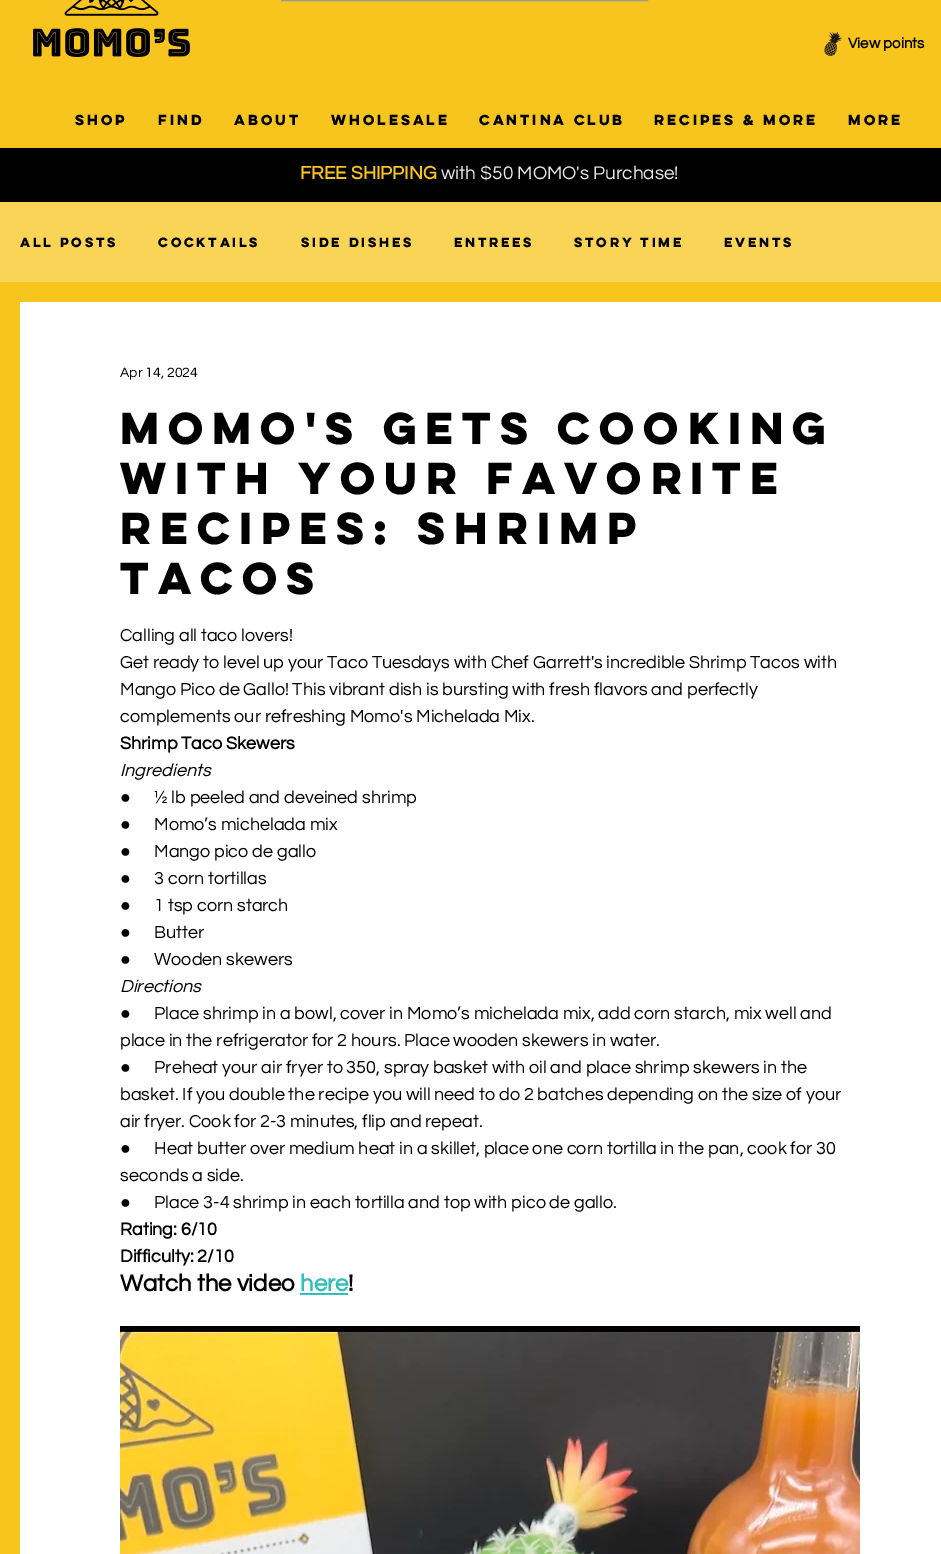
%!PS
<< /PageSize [941 1554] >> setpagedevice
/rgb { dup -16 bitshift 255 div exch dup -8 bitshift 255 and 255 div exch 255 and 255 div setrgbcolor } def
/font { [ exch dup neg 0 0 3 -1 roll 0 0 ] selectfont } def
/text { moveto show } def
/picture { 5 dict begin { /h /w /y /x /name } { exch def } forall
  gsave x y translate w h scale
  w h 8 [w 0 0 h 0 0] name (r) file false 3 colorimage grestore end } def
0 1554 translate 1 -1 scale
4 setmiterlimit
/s1 { /Questrial-Bold 15 font 16#000000 rgb } def
/s2 { /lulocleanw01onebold-Bold 13 font 16#000000 rgb } def
/s3 { /Questrial-Bold 19 font 16#F7C51E rgb } def
/s4 { /Questrial-Regular 19 font 16#E8E6E6 rgb } def
/s5 { /lulocleanw01onebold-Bold 12 font 16#000000 rgb } def
/s6 { /Questrial-Regular 14 font 16#000000 rgb } def
/s7 { /lulocleanw01onebold-Bold 40 font 16#000000 rgb } def
/s8 { /Questrial-Regular 18 font 16#000000 rgb } def
/s9 { /Questrial-Bold 18 font 16#000000 rgb } def
/s10 { /Questrial-Italic 18 font 16#000000 rgb } def
/s11 { /LiberationSans-Regular 18 font 16#000000 rgb } def
/s12 { /Questrial-Bold 24 font 16#000000 rgb } def
/s13 { /Questrial-Bold 24 font 16#32BEBB rgb } def
16#F7C51E rgb
0 0 941 1554 rectfill
(pic1.raw) 33 0 157 57 picture
16#999997 rgb
281.5 -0.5 366 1 rectstroke
(pic2.raw) 824 32 18 24 picture
s1
(View points) 848 48 text
s2
(Shop) 75 125 text
(Find) 158 125 text
(About) 234 125 text
(Wholesale) 331 125 text
(Cantina Club) 479 125 text
(Recipes & More) 654 125 text
(More) 848 125 text
0 148 941 54 rectfill
s3
(FREE SHIPPING) 300 179 text
s4
(with $50 MOMO's Purchase!) 441 179 text
16#F9D456 rgb
0 202 941 80 rectfill
s5
(All Posts) 20 247 text
(Cocktails) 158 247 text
(Side dishes) 301 247 text
(Entrees) 454 247 text
(Story Time) 574 247 text
(Events) 724 247 text
16#FFFFFF rgb
20 302 921 1252 rectfill
s6
(Apr 14, 2024) 120 377 text
s7
(Momo's gets cooking) 120 444 text
(with your favorite) 120 494 text
(recipes: Shrimp) 120 544 text
(tacos) 120 594 text
s8
(Calling all taco lovers!) 120 641 text
(Get ready to level up your Taco Tuesdays with Chef Garrett's incredible Shrimp Tacos with) 120 668 text
(Mango Pico de Gallo! This vibrant dish is bursting with fresh flavors and perfectly) 120 695 text
(complements our refreshing Momo's Michelada Mix.) 120 722 text
s9
(Shrimp Taco Skewers) 120 749 text
s10
(Ingredients) 120 776 text
s11
(●) 120 803 text
s8
(½ lb peeled and deveined shrimp) 154 803 text
s11
(●) 120 830 text
s8
(Momo’s michelada mix) 154 830 text
s11
(●) 120 857 text
s8
(Mango pico de gallo) 154 857 text
s11
(●) 120 884 text
s8
(3 corn tortillas) 154 884 text
s11
(●) 120 911 text
s8
(1 tsp corn starch) 154 911 text
s11
(●) 120 938 text
s8
(Butter) 154 938 text
s11
(●) 120 965 text
s8
(Wooden skewers) 154 965 text
s10
(Directions) 120 992 text
s11
(●) 120 1019 text
s8
(Place shrimp in a bowl, cover in Momo’s michelada mix, add corn starch, mix well and) 154 1019 text
(place in the refrigerator for 2 hours. Place wooden skewers in water.) 120 1046 text
s11
(●) 120 1073 text
s8
(Preheat your air fryer to 350, spray basket with oil and place shrimp skewers in the) 154 1073 text
(basket. If you double the recipe you will need to do 2 batches depending on the size of your) 120 1100 text
(air fryer. Cook for 2-3 minutes, flip and repeat.) 120 1127 text
s11
(●) 120 1154 text
s8
(Heat butter over medium heat in a skillet, place one corn tortilla in the pan, cook for 30) 154 1154 text
(seconds a side.) 120 1181 text
s11
(●) 120 1208 text
s8
(Place 3-4 shrimp in each tortilla and top with pico de gallo.) 154 1208 text
s9
(Rating: 6/10) 120 1235 text
(Difficulty: 2/10) 120 1262 text
s12
(Watch the video) 120 1291 text
s13
(here) 300 1291 text
300 1293 48 2 rectfill
s12
(!) 348 1291 text
(pic3.raw) 120 1326 740 228 picture
showpage
